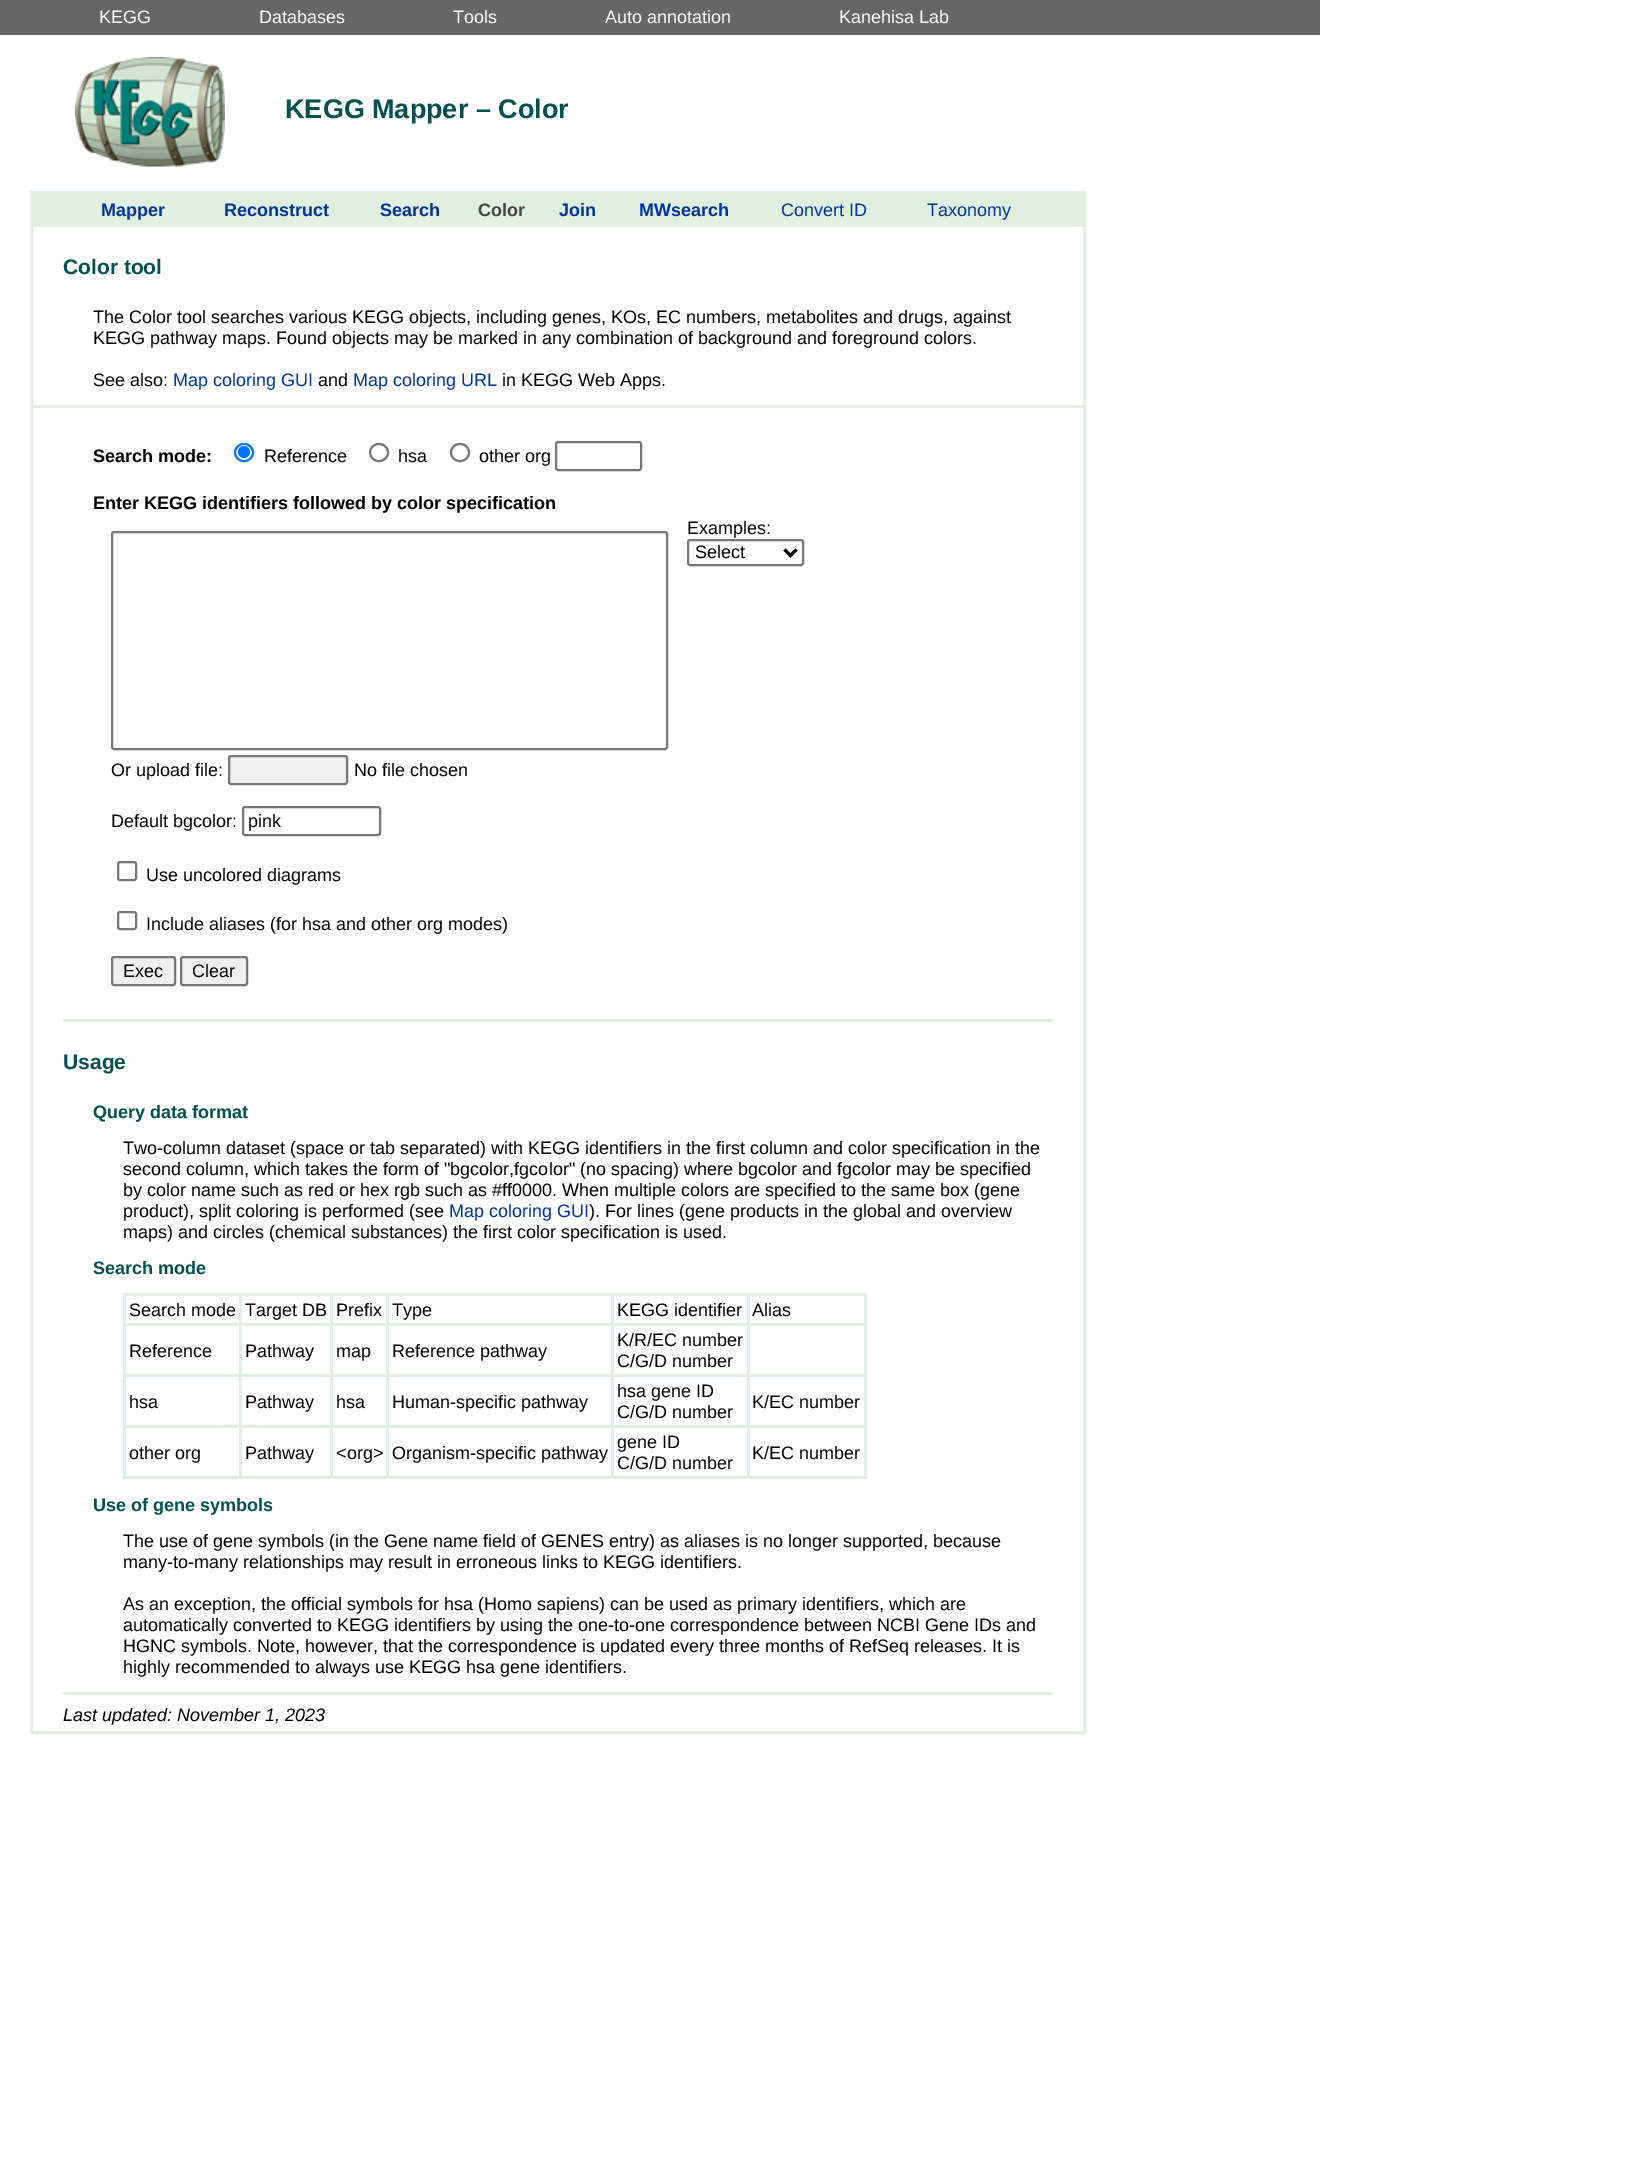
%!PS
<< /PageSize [1645 2159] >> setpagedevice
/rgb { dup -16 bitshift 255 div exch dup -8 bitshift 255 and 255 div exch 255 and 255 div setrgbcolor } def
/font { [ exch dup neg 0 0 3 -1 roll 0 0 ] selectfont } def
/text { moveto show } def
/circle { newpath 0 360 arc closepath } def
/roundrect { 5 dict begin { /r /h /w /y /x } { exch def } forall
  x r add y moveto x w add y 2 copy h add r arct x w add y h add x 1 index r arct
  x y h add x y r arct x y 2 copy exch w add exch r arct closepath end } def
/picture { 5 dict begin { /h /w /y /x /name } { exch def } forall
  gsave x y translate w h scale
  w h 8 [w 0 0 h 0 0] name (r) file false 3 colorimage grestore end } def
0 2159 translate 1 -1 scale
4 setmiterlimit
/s1 { /LiberationSans-Regular 18 font 16#FFFFFF rgb } def
/s2 { /LiberationSans-Bold 27 font 16#005050 rgb } def
/s3 { /LiberationSans-Bold 18 font 16#003399 rgb } def
/s4 { /LiberationSans-Bold 18 font 16#444444 rgb } def
/s5 { /LiberationSans-Regular 18 font 16#003399 rgb } def
/s6 { /LiberationSans-Bold 21 font 16#005050 rgb } def
/s7 { /LiberationSans-Regular 18 font 16#000000 rgb } def
/s8 { /LiberationSans-Bold 18 font 16#000000 rgb } def
/s9 { /LiberationSans-Bold 18 font 16#005050 rgb } def
/s10 { /LiberationSans-Italic 18 font 16#000000 rgb } def
16#FFFFFF rgb
0 0 1645 2159 rectfill
16#666666 rgb
0 0 1320 35 rectfill
s1
(KEGG) 99 23 text
(Databases) 259 23 text
(Tools) 453 23 text
(Auto annotation) 605 23 text
(Kanehisa Lab) 839 23 text
(pic1.raw) 75 57 150 110 picture
s2
(KEGG Mapper – Color) 285 118 text
16#E0F0E0 rgb
3 setlinewidth
31.5 192.5 1053 1540 rectstroke
33 194 1050 33 rectfill
s3
(Mapper) 101 216 text
(Reconstruct) 224 216 text
(Search) 380 216 text
s4
(Color) 478 216 text
s3
(Join) 559 216 text
(MWsearch) 639 216 text
s5
(Convert ID) 781 216 text
(Taxonomy) 927 216 text
s6
(Color tool) 63 274 text
s7
(The Color tool searches various KEGG objects, including genes, KOs, EC numbers, metabolites and drugs, against) 93 323 text
(KEGG pathway maps. Found objects may be marked in any combination of background and foreground colors.) 93 344 text
(See also:) 93 386 text
s5
(Map coloring GUI) 173 386 text
s7
(and) 318 386 text
s5
(Map coloring URL) 353 386 text
s7
(in KEGG Web Apps.) 502 386 text
16#E0F0E0 rgb
33 405 1050 3 rectfill
s8
(Search mode:) 93 462 text
16#0075FF rgb
2 setlinewidth
235 444 18 17 8.5 roundrect stroke
244 452 6 circle fill
s7
(Reference) 264 462 text
16#767676 rgb
370 444 18 17 8.5 roundrect stroke
s7
(hsa) 398 462 text
16#767676 rgb
451 444 18 17 8.5 roundrect stroke
s7
(other org) 479 462 text
16#767676 rgb
556 442 85 28 2 roundrect stroke
s8
(Enter KEGG identifiers followed by color specification) 93 509 text
s7
(Examples:) 687 534 text
16#767676 rgb
688 540 115 25 2 roundrect stroke
16#000000 rgb
3 setlinewidth
784.5 549.5 moveto 790.5 555.5 lineto 796.5 549.5 lineto stroke
(Select) 695 558 text
16#767676 rgb
2 setlinewidth
112 532 555 217 2 roundrect stroke
s7
(Or upload file:) 111 776 text
16#EFEFEF rgb
229 756 118 28 2 roundrect gsave fill grestore
16#767676 rgb
stroke
s7
(No file chosen) 354 776 text
(Default bgcolor:) 111 827 text
16#767676 rgb
243 807 137 28 2 roundrect stroke
s7
(pink) 248 827 text
16#767676 rgb
118 862 18 18 2 roundrect stroke
s7
(Use uncolored diagrams) 146 881 text
16#767676 rgb
118 912 18 17 2 roundrect stroke
s7
(Include aliases \(for hsa and other org modes\)) 146 930 text
16#EFEFEF rgb
112 957 63 28 2 roundrect gsave fill grestore
16#767676 rgb
stroke
s7
(Exec) 123 977 text
16#EFEFEF rgb
181 957 66 28 2 roundrect gsave fill grestore
16#767676 rgb
stroke
s7
(Clear) 192 977 text
16#E0F0E0 rgb
63 1019 990 3 rectfill
s6
(Usage) 63 1069 text
s9
(Query data format) 93 1118 text
s7
(Two-column dataset \(space or tab separated\) with KEGG identifiers in the first column and color specification in the) 123 1154 text
(second column, which takes the form of "bgcolor,fgcolor" \(no spacing\) where bgcolor and fgcolor may be specified) 123 1175 text
(by color name such as red or hex rgb such as #ff0000. When multiple colors are specified to the same box \(gene) 123 1196 text
(product\), split coloring is performed \(see) 123 1217 text
s5
(Map coloring GUI) 449 1217 text
s7
(\). For lines \(gene products in the global and overview) 589 1217 text
(maps\) and circles \(chemical substances\) the first color specification is used.) 123 1238 text
s9
(Search mode) 93 1274 text
16#E0F0E0 rgb
123 1293 744 3 rectfill
864 1293 3 186 rectfill
123 1476 744 3 rectfill
123 1293 3 186 rectfill
s7
(Search mode) 129 1316 text
16#E0F0E0 rgb
747 1323 120 3 rectfill
747 1374 120 3 rectfill
747 1425 120 3 rectfill
747 1425 3 54 rectfill
611 1425 139 3 rectfill
747 1374 3 54 rectfill
611 1374 139 3 rectfill
747 1323 3 54 rectfill
611 1323 139 3 rectfill
611 1425 3 54 rectfill
386 1425 228 3 rectfill
611 1374 3 54 rectfill
386 1374 228 3 rectfill
611 1323 3 54 rectfill
386 1323 228 3 rectfill
386 1425 3 54 rectfill
330 1425 59 3 rectfill
386 1374 3 54 rectfill
330 1374 59 3 rectfill
386 1323 3 54 rectfill
330 1323 59 3 rectfill
330 1425 3 54 rectfill
239 1425 94 3 rectfill
330 1374 3 54 rectfill
239 1374 94 3 rectfill
330 1323 3 54 rectfill
239 1323 94 3 rectfill
239 1425 3 54 rectfill
123 1425 119 3 rectfill
239 1374 3 54 rectfill
123 1374 119 3 rectfill
239 1323 3 54 rectfill
123 1323 119 3 rectfill
239 1293 3 33 rectfill
s7
(Target DB) 245 1316 text
16#E0F0E0 rgb
330 1293 3 33 rectfill
s7
(Prefix) 336 1316 text
16#E0F0E0 rgb
386 1293 3 33 rectfill
s7
(Type) 392 1316 text
16#E0F0E0 rgb
611 1293 3 33 rectfill
s7
(KEGG identifier) 617 1316 text
16#E0F0E0 rgb
747 1293 3 33 rectfill
s7
(Alias) 752 1316 text
(Reference) 129 1357 text
(Pathway) 245 1357 text
(map) 336 1357 text
(Reference pathway) 392 1357 text
(K/R/EC number) 617 1346 text
(C/G/D number) 617 1367 text
(hsa) 129 1408 text
(Pathway) 245 1408 text
(hsa) 336 1408 text
(Human-specific pathway) 392 1408 text
(hsa gene ID) 617 1397 text
(C/G/D number) 617 1418 text
(K/EC number) 752 1408 text
(other org) 129 1459 text
(Pathway) 245 1459 text
(<org>) 336 1459 text
(Organism-specific pathway) 392 1459 text
(gene ID) 617 1448 text
(C/G/D number) 617 1469 text
(K/EC number) 752 1459 text
s9
(Use of gene symbols) 93 1511 text
s7
(The use of gene symbols \(in the Gene name field of GENES entry\) as aliases is no longer supported, because) 123 1547 text
(many-to-many relationships may result in erroneous links to KEGG identifiers.) 123 1568 text
(As an exception, the official symbols for hsa \(Homo sapiens\) can be used as primary identifiers, which are) 123 1610 text
(automatically converted to KEGG identifiers by using the one-to-one correspondence between NCBI Gene IDs and) 123 1631 text
(HGNC symbols. Note, however, that the correspondence is updated every three months of RefSeq releases. It is) 123 1652 text
(highly recommended to always use KEGG hsa gene identifiers.) 123 1673 text
16#E0F0E0 rgb
63 1692 990 3 rectfill
s10
(Last updated: November 1, 2023) 63 1721 text
showpage
